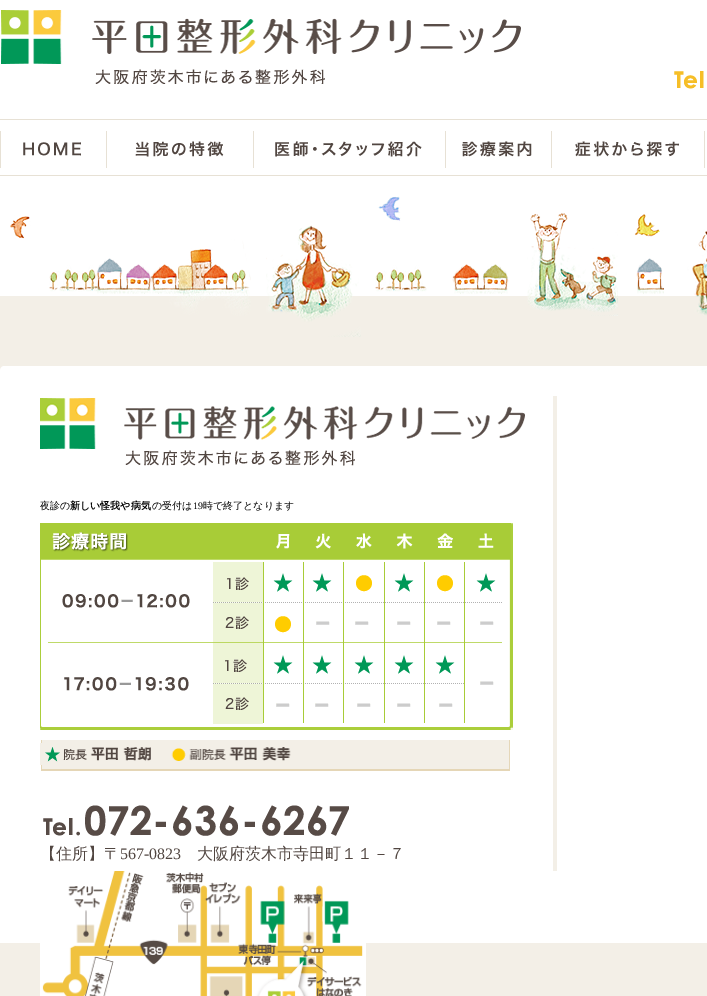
%!PS
<< /PageSize [707 996] >> setpagedevice
/rgb { dup -16 bitshift 255 div exch dup -8 bitshift 255 and 255 div exch 255 and 255 div setrgbcolor } def
/font { [ exch dup neg 0 0 3 -1 roll 0 0 ] selectfont } def
/text { moveto show } def
/picture { 5 dict begin { /h /w /y /x /name } { exch def } forall
  gsave x y translate w h scale
  w h 8 [w 0 0 h 0 0] name (r) file false 3 colorimage grestore end } def
0 996 translate 1 -1 scale
4 setmiterlimit
/s1 { /WenQuanYiZenHei-Medium 10 font 16#000000 rgb } def
/s2 { /WenQuanYiZenHei-Bold 10 font 16#000000 rgb } def
/s3 { /LiberationSerif-Regular 10 font 16#000000 rgb } def
/s4 { /WenQuanYiZenHei-Medium 16 font 16#514641 rgb } def
/s5 { /LiberationSerif-Regular 16 font 16#514641 rgb } def
16#FFFFFF rgb
0 0 707 996 rectfill
(pic1.raw) 1 10 520 74 picture
(pic2.raw) 674 71 30 18 picture
16#E7E1D5 rgb
0 119 707 1 rectfill
0 175 707 1 rectfill
(pic3.raw) 0 131 81 37 picture
(pic4.raw) 106 131 118 37 picture
(pic5.raw) 253 131 169 37 picture
(pic6.raw) 445 131 87 37 picture
(pic7.raw) 551 131 128 37 picture
704 131 1 37 rectfill
16#F3EFE7 rgb
0 296 707 700 rectfill
(pic8.raw) 10 196 697 141 picture
(pic9.raw) 0 366 707 577 picture
553 396 4 475 rectfill
(pic10.raw) 40 398 485 68 picture
s1
(夜診の) 40 509 text
s2
(新しい怪我や病気) 70 509 text
s1
(の受付は) 152 509 text
s3
(19) 193 509 text
s1
(時で終了となります) 203 509 text
(pic11.raw) 40 523 473 207 picture
(pic12.raw) 40 740 470 31 picture
(pic13.raw) 43 805 306 31 picture
s4
(【住所】〒) 40 859 text
s5
(567-0823) 120 859 text
s4
(大阪府茨木市寺田町１１－７) 197 859 text
(pic14.raw) 40 871 326 125 picture
showpage
